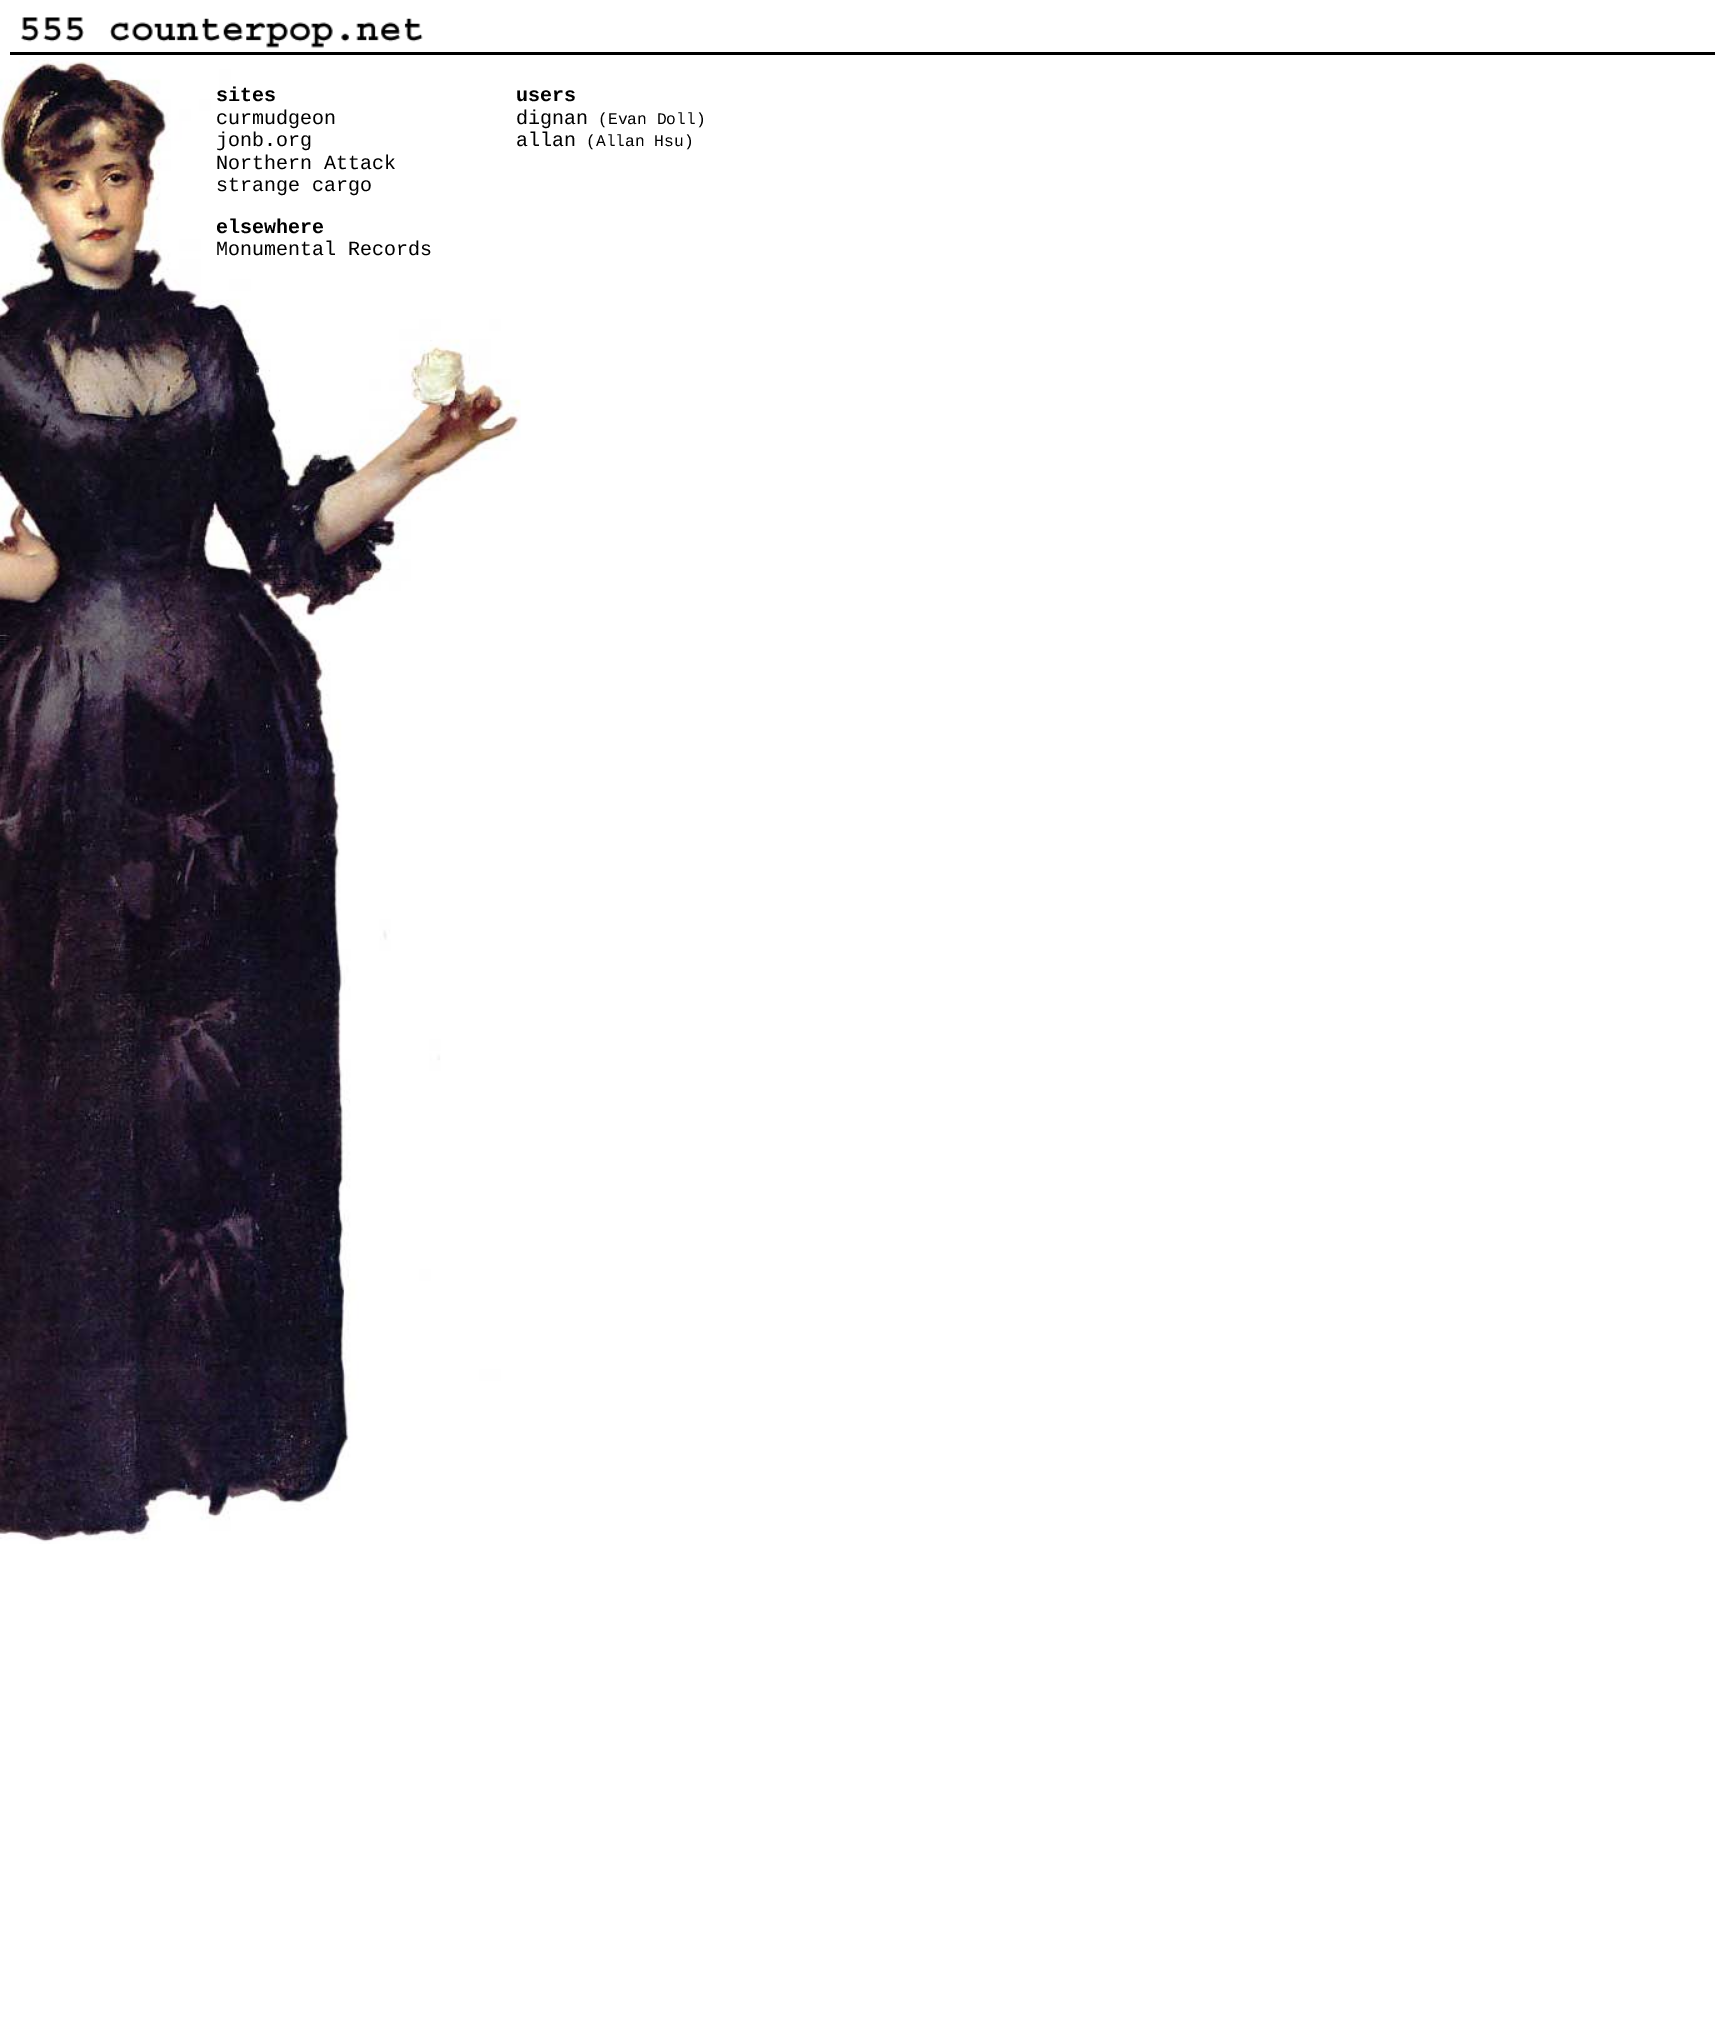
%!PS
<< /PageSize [1725 2028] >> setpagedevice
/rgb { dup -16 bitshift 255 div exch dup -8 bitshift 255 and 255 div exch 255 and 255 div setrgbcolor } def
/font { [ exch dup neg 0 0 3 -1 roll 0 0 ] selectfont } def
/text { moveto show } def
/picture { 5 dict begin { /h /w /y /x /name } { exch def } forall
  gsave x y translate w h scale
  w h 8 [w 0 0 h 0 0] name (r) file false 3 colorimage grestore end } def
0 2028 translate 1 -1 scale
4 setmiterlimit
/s1 { /LiberationMono-Bold 20 font 16#000000 rgb } def
/s2 { /LiberationMono-Regular 20 font 16#000000 rgb } def
/s3 { /LiberationMono-Regular 16.25 font 16#000000 rgb } def
16#FFFFFF rgb
0 0 1725 2028 rectfill
(pic1.raw) 0 60 521 1484 picture
(pic2.raw) 21 17 402 31 picture
16#000000 rgb
10 52 1705 3 rectfill
s1
(sites) 216 101 text
s2
(curmudgeon) 216 124 text
(jonb.org) 216 146 text
(Northern Attack) 216 169 text
(strange cargo) 216 191 text
s1
(elsewhere) 216 233 text
s2
(Monumental Records) 216 255 text
s1
(users) 516 101 text
s2
(dignan) 516 124 text
s3
(\(Evan Doll\)) 598 124 text
s2
(allan) 516 146 text
s3
(\(Allan Hsu\)) 586 146 text
showpage
